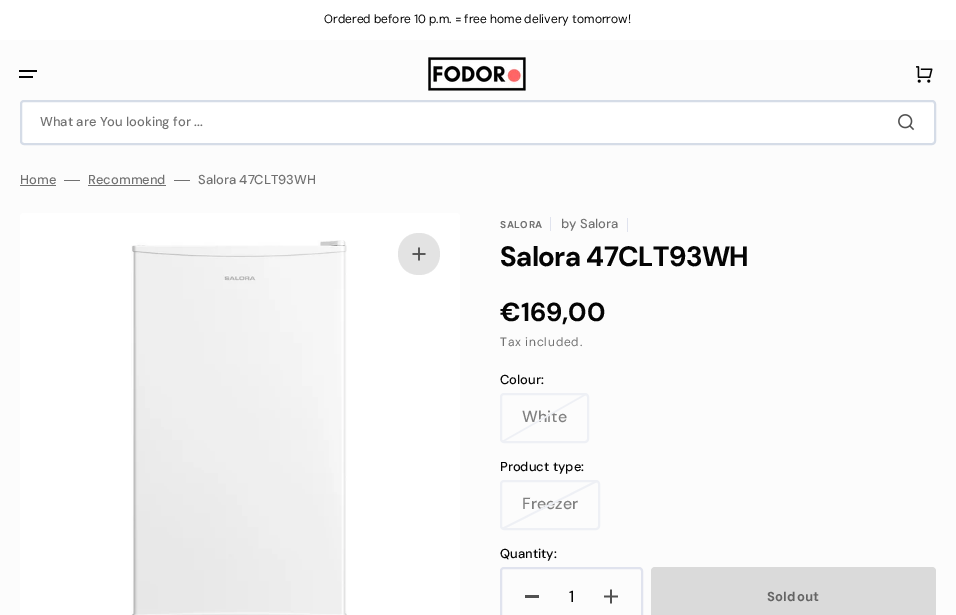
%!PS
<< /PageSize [956 615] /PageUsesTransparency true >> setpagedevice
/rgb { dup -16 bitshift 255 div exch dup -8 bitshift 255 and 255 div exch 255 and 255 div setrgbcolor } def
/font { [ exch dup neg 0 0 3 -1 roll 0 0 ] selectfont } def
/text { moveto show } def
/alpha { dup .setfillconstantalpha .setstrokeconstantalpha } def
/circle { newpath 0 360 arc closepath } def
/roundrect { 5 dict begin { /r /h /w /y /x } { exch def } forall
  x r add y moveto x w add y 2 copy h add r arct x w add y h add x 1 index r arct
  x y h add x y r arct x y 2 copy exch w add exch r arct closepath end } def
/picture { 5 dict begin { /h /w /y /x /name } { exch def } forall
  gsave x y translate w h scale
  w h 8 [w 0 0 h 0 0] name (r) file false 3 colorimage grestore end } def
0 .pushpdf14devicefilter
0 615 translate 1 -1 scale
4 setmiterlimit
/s1 { /DMSans-Medium 13 font 16#717171 rgb } def
/s2 { /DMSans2-Bold 26 font 16#040404 rgb } def
/s3 { /DMSans-Medium 13 font 16#040404 rgb } def
/s4 { /DMSans2-Medium 16 font 16#808080 rgb } def
/s5 { /DMSans2-Medium 16 font 16#040404 rgb } def
16#FCFCFC rgb
0 0 956 615 rectfill
16#FFFFFF rgb
0 0 956 40 rectfill
/DMSans-Regular 12 font
16#040404 rgb
324 23 moveto -0.25 0 32 (Ordered before 10 p.m. = free home delivery tomorrow!) widthshow
19 70 18 2 rectfill
19 76 14 2 rectfill
(pic1.raw) 428 57 98 34 picture
(pic2.raw) 916 66 17 17 picture
16#FFFFFF rgb
21 101 914 43 3 roundrect gsave fill grestore
16#D5DCE7 rgb
2 setlinewidth
stroke
s1
(What are You looking for ...) 40 126 text
(pic3.raw) 898 114 17 17 picture
(Home) 20 184 text
20 185 36 1 rectfill
64 180 16 1 rectfill
(Recommend) 88 184 text
88 185 78 1 rectfill
174 180 16 1 rectfill
(Salora 47CLT93WH) 198 184 text
16#FFFFFF rgb
20 213 440 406 4 roundrect fill
(pic4.raw) 131 240 216 375 picture
16#FCFCFC rgb
419 254 21 circle fill
0.1 alpha
16#040404 rgb
419 233 moveto 447 233 447 275 419 275 curveto 391 275 391 233 419 233 curveto closepath fill
1 alpha
(pic5.raw) 412 247 14 14 picture
/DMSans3-Bold 10 font
16#717171 rgb
500 228 moveto 0.5 0 (SALORA) ashow
16#E0E3EE rgb
550 217 1 14 rectfill
s1
(by Salora) 561 228 text
16#E0E3EE rgb
627 218 1 14 rectfill
/DMSans-Bold 28 font
16#040404 rgb
500 266 moveto -0.5 0 (Salora 47CLT93WH) ashow
s2
(€169,00) 500 321 text
/DMSans-Regular 12 font
16#717171 rgb
500 346 moveto 0.75 0 (Tax included.) ashow
s3
(Colour:) 500 384 text
16#EEF0F5 rgb
501 394 87 48 3 roundrect stroke
s4
(White) 522 422 text
16#EEF0F5 rgb
502 441 moveto 583 395 lineto 586 395 lineto 505 441 lineto closepath fill
s3
(Product type:) 500 471 text
16#EEF0F5 rgb
501 481 98 48 3 roundrect stroke
s4
(Freezer) 522 509 text
16#EEF0F5 rgb
502 528 moveto 593 482 lineto 597 482 lineto 506 528 lineto closepath fill
s3
(Quantity:) 500 558 text
16#E0E3EE rgb
501 568 141 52 3 roundrect stroke
16#515151 rgb
525 595 14 3 rectfill
s5
(1) 569 602 text
(pic6.raw) 604 589 14 15 picture
16#DADADA rgb
651 567 285 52 4 roundrect fill
/DMSans3-Bold 13 font
16#646464 rgb
767 601 moveto -1 0 32 (Sold out) widthshow
.poppdf14devicefilter showpage
